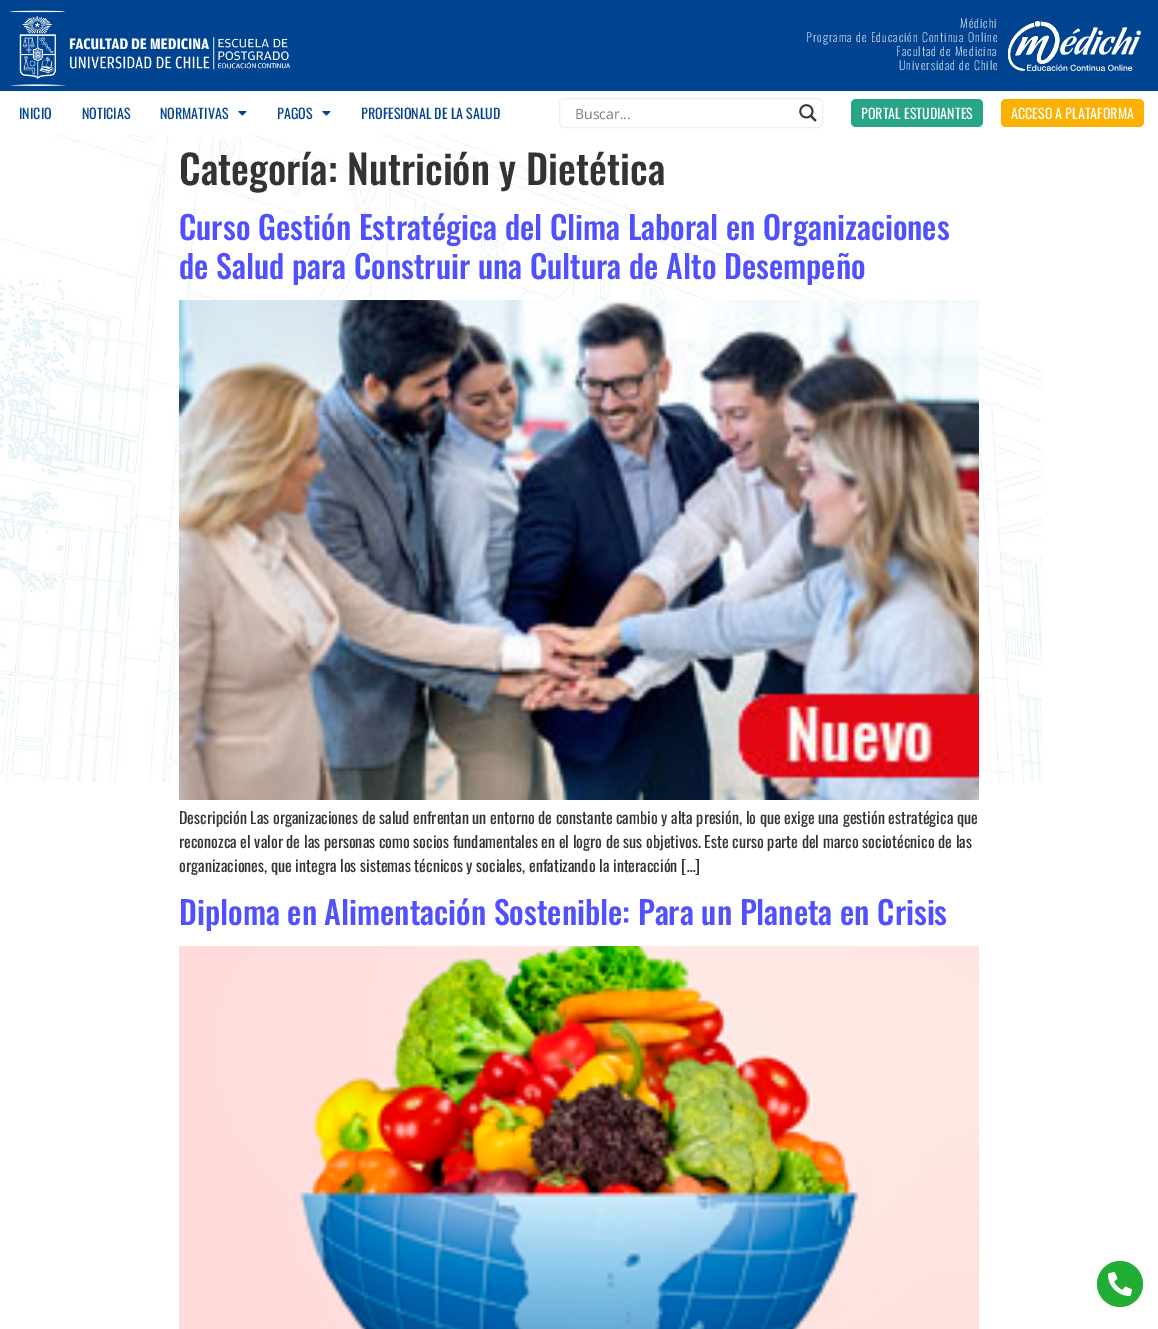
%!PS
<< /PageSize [1158 1329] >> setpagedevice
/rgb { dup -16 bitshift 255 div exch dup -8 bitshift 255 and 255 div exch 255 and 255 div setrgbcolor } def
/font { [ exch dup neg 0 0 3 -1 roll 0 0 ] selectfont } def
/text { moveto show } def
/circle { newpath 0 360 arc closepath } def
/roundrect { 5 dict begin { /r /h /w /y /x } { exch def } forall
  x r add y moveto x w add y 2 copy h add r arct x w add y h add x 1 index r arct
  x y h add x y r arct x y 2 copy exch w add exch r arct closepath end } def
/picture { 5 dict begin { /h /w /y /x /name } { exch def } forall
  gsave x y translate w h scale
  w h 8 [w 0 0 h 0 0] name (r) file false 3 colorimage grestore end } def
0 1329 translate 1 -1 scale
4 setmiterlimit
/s1 { /Oswald-Regular 14 font 16#004391 rgb } def
/s2 { /OpenSans-Regular 14 font 16#7D7D7D rgb } def
/s3 { /Oswald-Regular 14 font 16#FFFFFF rgb } def
/s4 { /Oswald-Medium 40 font 16#333333 rgb } def
/s5 { /Oswald-Medium 32 font 16#5050FF rgb } def
/s6 { /Oswald-Regular 16 font 16#333333 rgb } def
16#FFFFFF rgb
0 0 1158 1329 rectfill
16#004391 rgb
0 0 1158 91 rectfill
(pic1.raw) 9 10 281 76 picture
/Oswald-ExtraLight 12 font
16#FFFFFF rgb
960 28 moveto 1 0 (Médichi) ashow
806 42 moveto 1 0 (Programa de Educación Continua Online) ashow
896 56 moveto 1 0 (Facultad de Medicina) ashow
899 70 moveto 1 0 (Universidad de Chile) ashow
(pic2.raw) 1008 21 133 50 picture
s1
(INICIO) 19 119 text
(NOTICIAS) 82 119 text
(NORMATIVAS) 160 119 text
(pic3.raw) 238 111 9 5 picture
(PAGOS) 277 119 text
(pic3.raw) 322 111 9 5 picture
(PROFESIONAL DE LA SALUD) 361 119 text
16#EFEFEF rgb
559.5 98.5 263 29 4.5 roundrect stroke
s2
(Buscar...) 575 119 text
(pic4.raw) 799 104 18 18 picture
16#28A587 rgb
851 99 132 28 5 roundrect fill
s3
(PORTAL ESTUDIANTES) 861 119 text
16#FCB100 rgb
1001 99 143 28 5 roundrect fill
s3
(ACCESO A PLATAFORMA) 1011 119 text
(pic5.raw) 0 135 1042 647 picture
s4
(Categoría: Nutrición y Dietética) 179 185 text
s5
(Curso Gestión Estratégica del Clima Laboral en Organizaciones) 179 240 text
(de Salud para Construir una Cultura de Alto Desempeño) 179 279 text
(pic6.raw) 179 300 800 500 picture
s6
(Descripción Las organizaciones de salud enfrentan un entorno de constante cambio y alta presión, lo que exige una gestión estratégica que) 179 824 text
(reconozca el valor de las personas como socios fundamentales en el logro de sus objetivos. Este curso parte del marco sociotécnico de las) 179 848 text
(organizaciones, que integra los sistemas técnicos y sociales, enfatizando la interacción […]) 179 872 text
s5
(Diploma en Alimentación Sostenible: Para un Planeta en Crisis) 179 925 text
(pic7.raw) 179 946 800 383 picture
16#21AD33 rgb
1120 1284 23 circle fill
(pic8.raw) 1108 1272 24 24 picture
showpage
